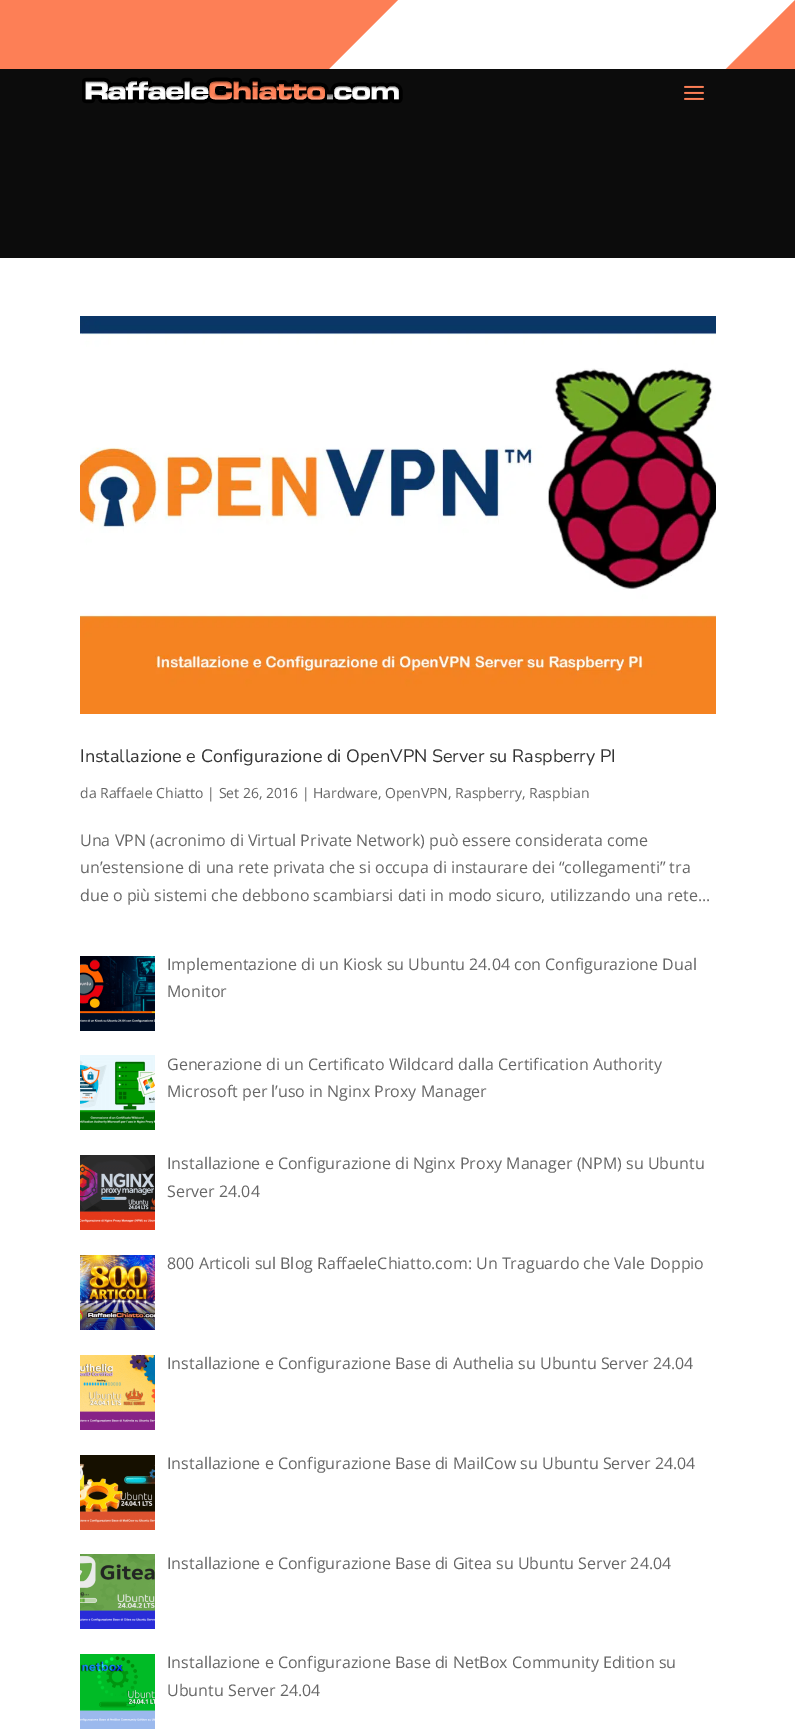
%!PS
<< /PageSize [795 1729] >> setpagedevice
/rgb { dup -16 bitshift 255 div exch dup -8 bitshift 255 and 255 div exch 255 and 255 div setrgbcolor } def
/font { [ exch dup neg 0 0 3 -1 roll 0 0 ] selectfont } def
/text { moveto show } def
/picture { 5 dict begin { /h /w /y /x /name } { exch def } forall
  gsave x y translate w h scale
  w h 8 [w 0 0 h 0 0] name (r) file false 3 colorimage grestore end } def
0 1729 translate 1 -1 scale
4 setmiterlimit
/s1 { /NunitoSans-Regular 18 font 16#333333 rgb } def
/s2 { /OpenSans-Regular 14 font 16#666666 rgb } def
/s3 { /OpenSans-Regular 16 font 16#666666 rgb } def
16#0C0C0C rgb
0 0 795 1729 rectfill
16#FFFFFF rgb
329 0 466 69 rectfill
gsave
0 0 795 69 rectclip
16#FD7F56 rgb
398 0 moveto 0 398 lineto 0 0 lineto closepath 398 795 moveto 795 398 lineto 795 0 lineto 0 795 lineto closepath fill
grestore
(pic1.raw) 82 77 321 27 picture
(pic2.raw) 684 85 20 15 picture
0 258 795 1471 rectfill
(pic3.raw) 80 316 636 398 picture
s1
(Installazione e Configurazione di OpenVPN Server su Raspberry PI) 80 762 text
s2
(da Raffaele Chiatto | Set 26, 2016 | Hardware, OpenVPN, Raspberry, Raspbian) 80 798 text
s3
(Una VPN \(acronimo di Virtual Private Network\) può essere considerata come) 80 846 text
(un’estensione di una rete privata che si occupa di instaurare dei “collegamenti” tra) 80 873 text
(due o più sistemi che debbono scambiarsi dati in modo sicuro, utilizzando una rete...) 80 901 text
(pic4.raw) 80 956 75 75 picture
(Implementazione di un Kiosk su Ubuntu 24.04 con Configurazione Dual) 167 970 text
(Monitor) 167 997 text
(pic5.raw) 80 1055 75 75 picture
(Generazione di un Certificato Wildcard dalla Certification Authority) 167 1070 text
(Microsoft per l’uso in Nginx Proxy Manager) 167 1097 text
(pic6.raw) 80 1155 75 75 picture
(Installazione e Configurazione di Nginx Proxy Manager \(NPM\) su Ubuntu) 167 1169 text
(Server 24.04) 167 1197 text
(pic7.raw) 80 1255 75 75 picture
(800 Articoli sul Blog RaffaeleChiatto.com: Un Traguardo che Vale Doppio) 167 1269 text
(pic8.raw) 80 1355 75 75 picture
(Installazione e Configurazione Base di Authelia su Ubuntu Server 24.04) 167 1369 text
(pic9.raw) 80 1455 75 75 picture
(Installazione e Configurazione Base di MailCow su Ubuntu Server 24.04) 167 1469 text
(pic10.raw) 80 1554 75 75 picture
(Installazione e Configurazione Base di Gitea su Ubuntu Server 24.04) 167 1569 text
(pic11.raw) 80 1654 75 75 picture
(Installazione e Configurazione Base di NetBox Community Edition su) 167 1668 text
(Ubuntu Server 24.04) 167 1696 text
showpage
